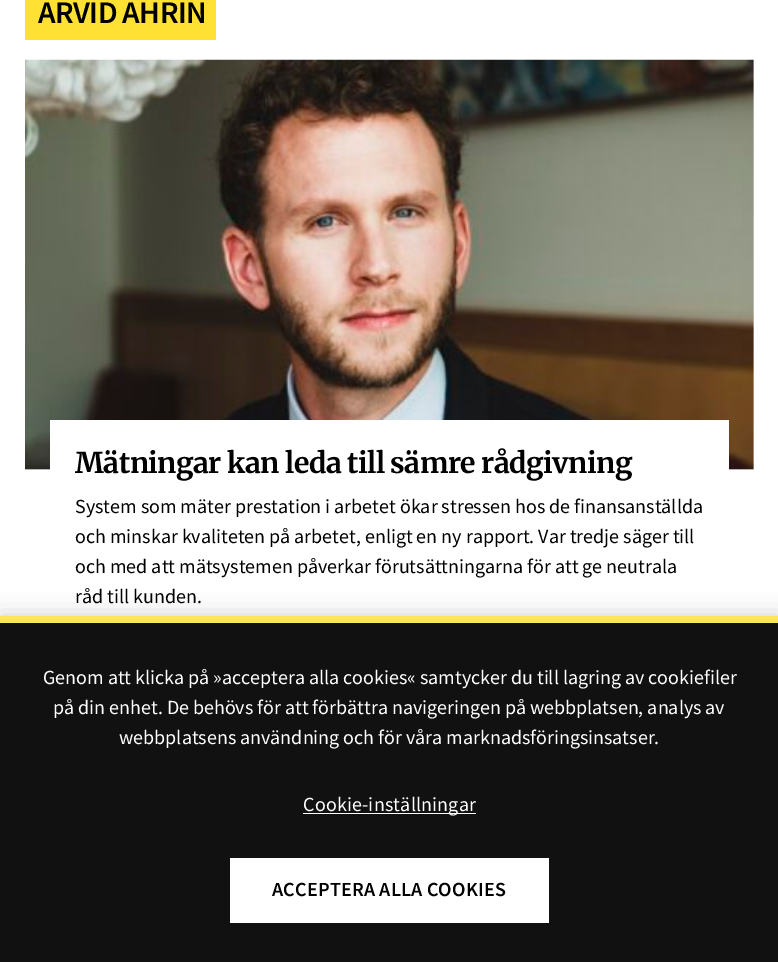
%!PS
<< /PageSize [778 962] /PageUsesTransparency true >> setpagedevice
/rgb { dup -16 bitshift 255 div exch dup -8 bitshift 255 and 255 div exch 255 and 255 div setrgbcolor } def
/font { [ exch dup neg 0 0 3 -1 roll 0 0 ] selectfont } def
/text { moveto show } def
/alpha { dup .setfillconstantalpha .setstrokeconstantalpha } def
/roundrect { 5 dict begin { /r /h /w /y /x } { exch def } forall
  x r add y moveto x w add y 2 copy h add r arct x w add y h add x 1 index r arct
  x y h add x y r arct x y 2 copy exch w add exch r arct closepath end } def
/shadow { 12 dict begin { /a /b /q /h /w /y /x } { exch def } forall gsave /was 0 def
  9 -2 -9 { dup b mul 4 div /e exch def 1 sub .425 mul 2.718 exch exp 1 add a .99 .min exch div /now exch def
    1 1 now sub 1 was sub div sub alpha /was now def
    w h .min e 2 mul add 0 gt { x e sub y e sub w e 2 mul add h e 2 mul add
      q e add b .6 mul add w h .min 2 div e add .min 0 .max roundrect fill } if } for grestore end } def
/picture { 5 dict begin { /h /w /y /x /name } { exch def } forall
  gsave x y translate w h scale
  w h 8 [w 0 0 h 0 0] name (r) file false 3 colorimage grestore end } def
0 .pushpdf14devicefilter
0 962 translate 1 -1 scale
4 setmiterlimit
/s1 { /SourceSansPro-Regular 20 font 16#000000 rgb } def
/s2 { /SourceSansPro-Regular 20 font 16#FFFFFF rgb } def
16#FFFFFF rgb
0 0 778 962 rectfill
16#FEE133 rgb
25 0 191 40 rectfill
/SourceSansPro-SemiBold 31.5 font
16#000000 rgb
38 23 moveto -0.6 0 (ARVID AHRIN) ashow
16#E6E6E6 rgb
25 60 729 410 rectfill
(pic1.raw) 25 59 729 411 picture
16#FFFFFF rgb
50 420 679 50 rectfill
/Merriweather-Bold 28.5 font
16#000000 rgb
75 473 moveto -0.55 0 (Mätningar kan leda till sämre rådgivning) ashow
s1
(System som mäter prestation i arbetet ökar stressen hos de finansanställda) 75 513 text
(och minskar kvaliteten på arbetet, enligt en ny rapport. Var tredje säger till) 75 543 text
(och med att mätsystemen påverkar förutsättningarna för att ge neutrala) 75 573 text
(råd till kunden.) 75 603 text
0 616 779 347 0 11 0.2 shadow
16#111111 rgb
0 623 778 339 rectfill
16#FEE652 rgb
0 616 778 7 rectfill
s2
(Genom att klicka på »acceptera alla cookies« samtycker du till lagring av cookiefiler) 43 684 text
(på din enhet. De behövs för att förbättra navigeringen på webbplatsen, analys av) 53 714 text
(webbplatsens användning och för våra marknadsföringsinsatser.) 119 744 text
303 813 173 1 rectfill
303 811 moveto 0.2 0 (Cookie-inställningar) ashow
230 858 319 65 rectfill
/SourceSansPro-SemiBold 20 font
16#000000 rgb
272 896 moveto 0.2 0 (ACCEPTERA ALLA COOKIES) ashow
.poppdf14devicefilter showpage
